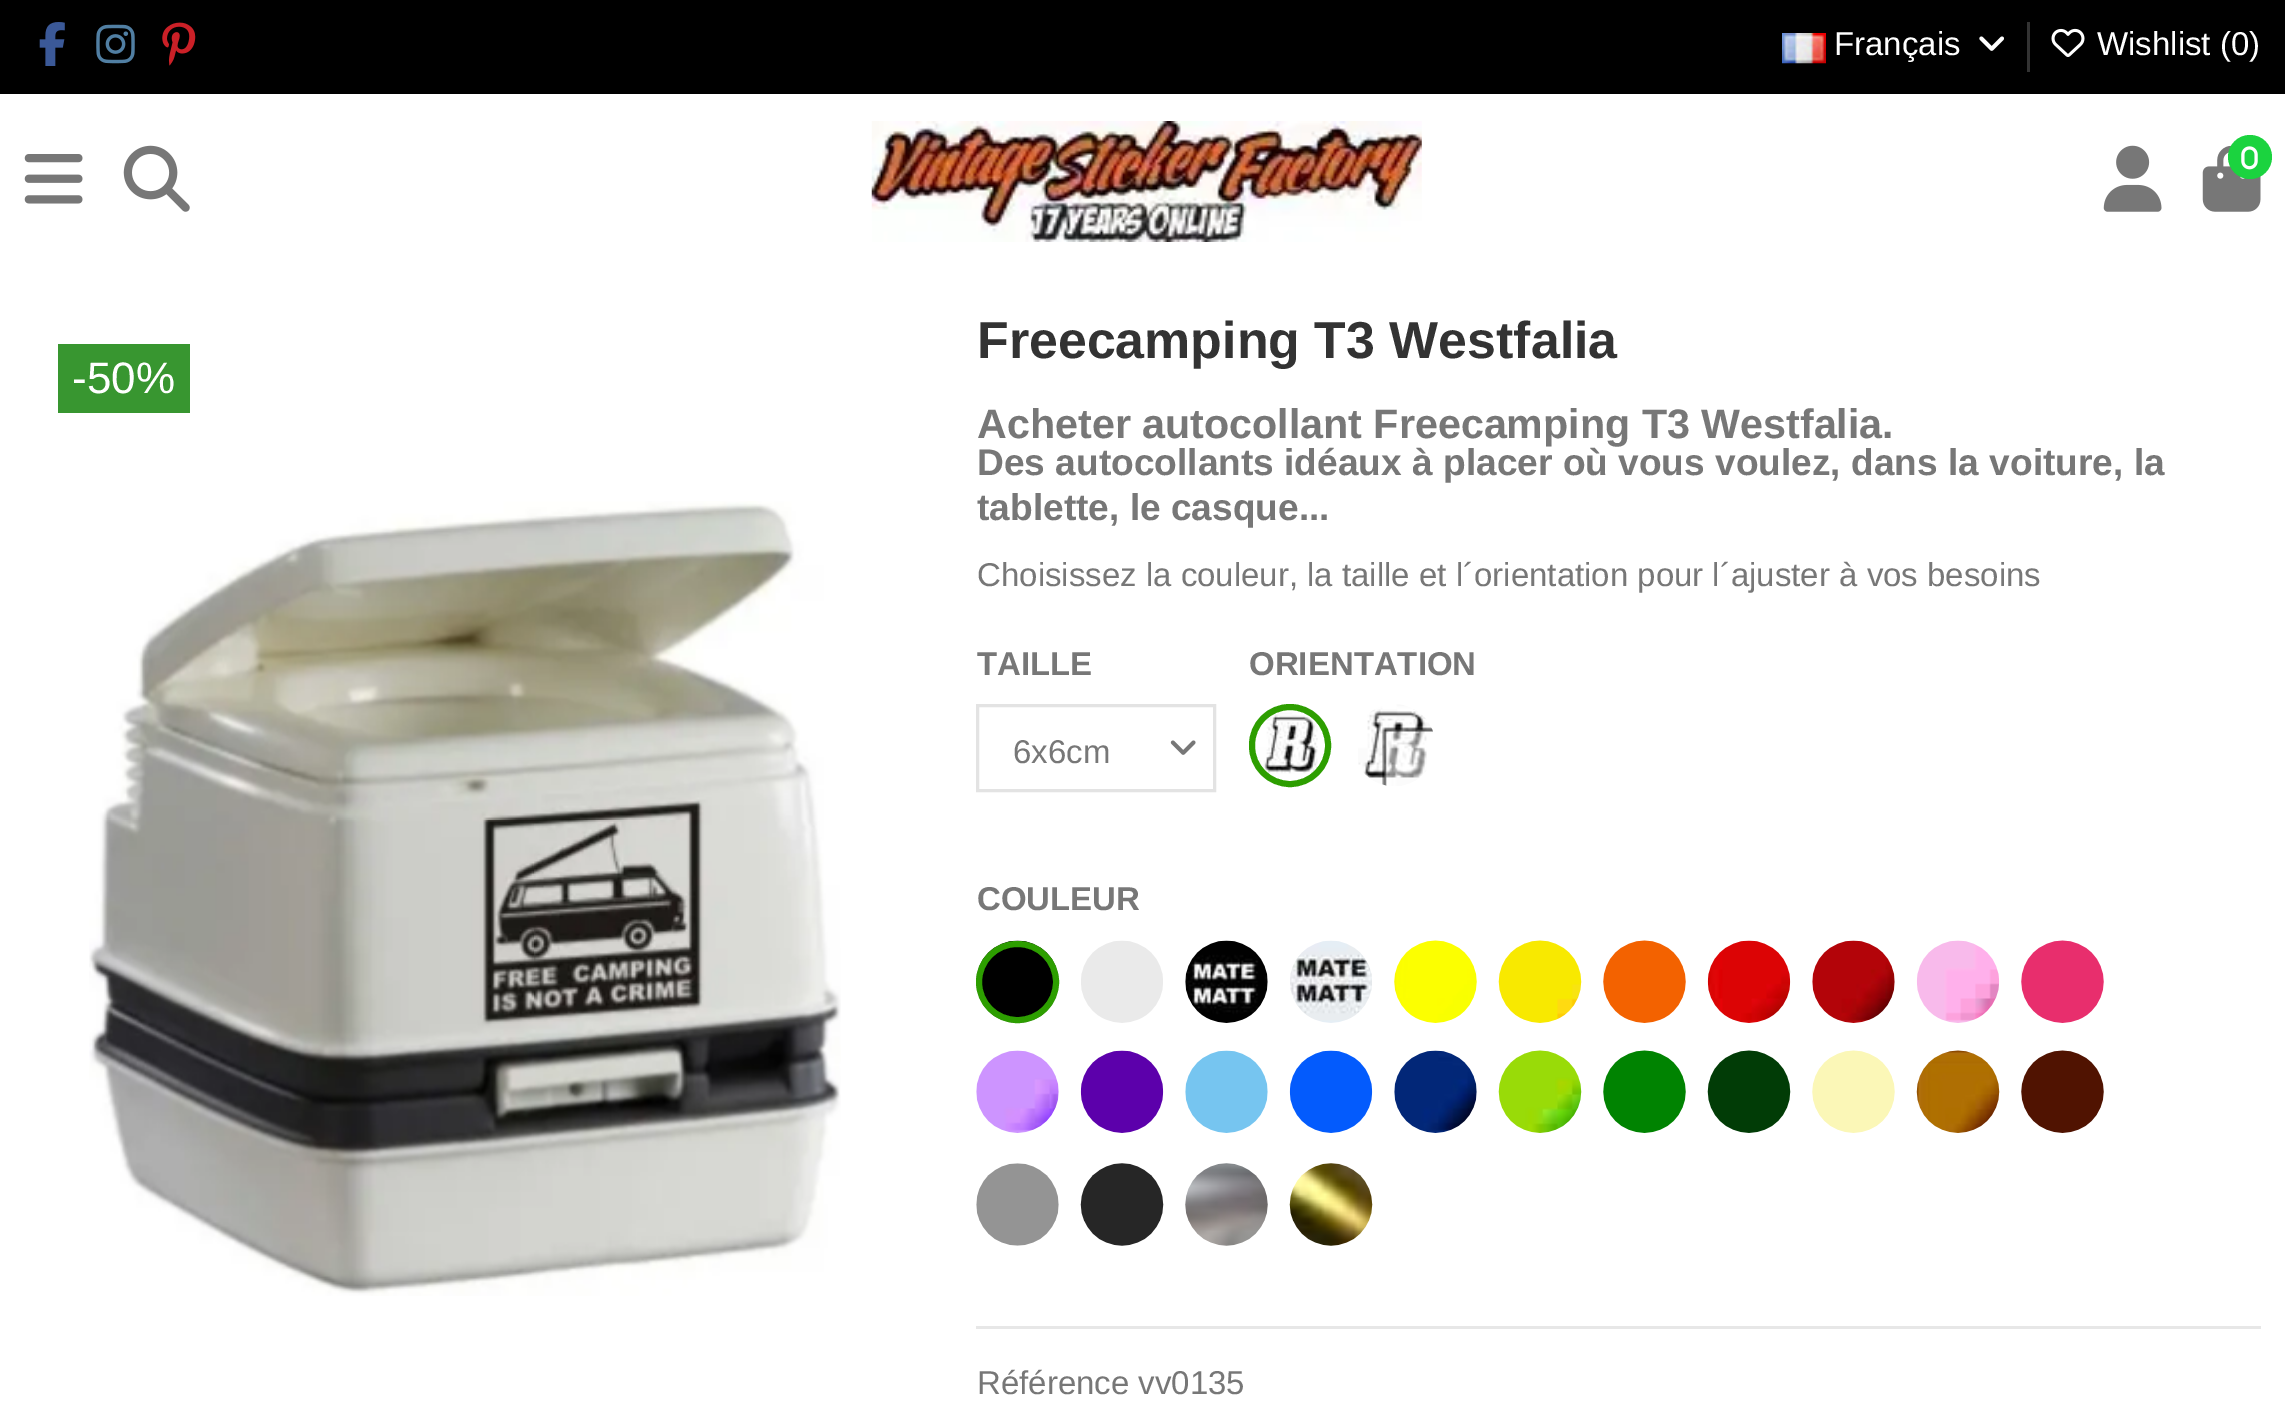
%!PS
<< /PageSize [2285 1412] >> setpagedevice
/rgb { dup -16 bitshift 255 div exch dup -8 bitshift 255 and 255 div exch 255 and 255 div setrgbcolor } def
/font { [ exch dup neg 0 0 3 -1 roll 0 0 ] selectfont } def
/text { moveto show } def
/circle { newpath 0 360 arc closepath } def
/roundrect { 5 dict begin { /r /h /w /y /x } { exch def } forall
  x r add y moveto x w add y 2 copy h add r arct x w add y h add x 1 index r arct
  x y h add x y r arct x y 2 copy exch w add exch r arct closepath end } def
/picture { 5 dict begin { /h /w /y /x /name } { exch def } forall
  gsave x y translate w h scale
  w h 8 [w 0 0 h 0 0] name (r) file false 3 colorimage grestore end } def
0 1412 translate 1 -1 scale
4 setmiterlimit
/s1 { /LiberationSans-Regular 33 font 16#FFFFFF rgb } def
/s2 { /LiberationSans-Regular 44 font 16#FFFFFF rgb } def
/s3 { /LiberationSans-Bold 51.9 font 16#333333 rgb } def
/s4 { /LiberationSans-Bold 41.25 font 16#777777 rgb } def
/s5 { /LiberationSans-Bold 37.1 font 16#777777 rgb } def
/s6 { /LiberationSans-Regular 33 font 16#777777 rgb } def
/s7 { /LiberationSans-Bold 33 font 16#777777 rgb } def
16#FFFFFF rgb
0 0 2285 1412 rectfill
16#000000 rgb
0 0 2285 94 rectfill
(pic1.raw) 39 22 26 44 picture
(pic2.raw) 96 24 39 40 picture
(pic3.raw) 162 22 34 44 picture
(pic4.raw) 1782 33 44 31 picture
s1
(Français) 1834 55 text
(pic5.raw) 1979 36 25 15 picture
16#333333 rgb
2027 22 3 50 rectfill
(pic6.raw) 2051 28 34 29 picture
s1
(Wishlist \(0\)) 2097 55 text
(pic7.raw) 24 154 59 50 picture
(pic8.raw) 123 145 67 67 picture
(pic9.raw) 871 121 551 121 picture
(pic10.raw) 2103 145 59 67 picture
(pic12.raw) 2202 145 59 67 picture
16#1BD33F rgb
2250 157 22 circle fill
(pic11.raw) 2241 146 17 24 picture
16#389630 rgb
58 344 132 69 rectfill
s2
(-50%) 72 393 text
(pic13.raw) 89 501 752 795 picture
s3
(Freecamping T3 Westfalia) 977 358 text
s4
(Acheter autocollant Freecamping T3 Westfalia.) 977 438 text
s5
(Des autocollants idéaux à placer où vous voulez, dans la voiture, la) 977 475 text
(tablette, le casque...) 977 520 text
s6
(Choisissez la couleur, la taille et l´orientation pour l´ajuster à vos besoins) 977 586 text
s7
(TAILLE) 977 675 text
(pic14.raw) 1170 740 26 15 picture
16#E3E3E3 rgb
3 setlinewidth
977.5 705.5 237 85 rectstroke
s6
(6x6cm) 1013 763 text
s7
(ORIENTATION) 1249 675 text
(pic15.raw) 1255 709 63 77 picture
16#2D9E00 rgb
6 setlinewidth
1252 707 76 77 38 roundrect stroke
(pic16.raw) 1358 704 75 82 picture
s7
(COULEUR) 977 910 text
(pic17.raw) 976 940 83 83 picture
16#2D9E00 rgb
979 944 77 76 38 roundrect stroke
(pic18.raw) 1081 940 82 83 picture
(pic19.raw) 1185 940 83 83 picture
(pic20.raw) 1290 940 82 83 picture
(pic21.raw) 1394 940 83 83 picture
(pic22.raw) 1498 940 84 83 picture
(pic23.raw) 1603 940 83 83 picture
(pic24.raw) 1707 940 84 83 picture
(pic25.raw) 1812 940 83 83 picture
(pic26.raw) 1916 940 84 83 picture
(pic27.raw) 2021 940 83 83 picture
(pic28.raw) 976 1050 83 83 picture
(pic29.raw) 1080 1050 84 83 picture
(pic30.raw) 1185 1050 83 83 picture
(pic31.raw) 1289 1050 84 83 picture
(pic32.raw) 1394 1050 83 83 picture
(pic33.raw) 1498 1050 84 83 picture
(pic34.raw) 1603 1050 83 83 picture
(pic35.raw) 1707 1050 84 83 picture
(pic36.raw) 1812 1050 83 83 picture
(pic37.raw) 1916 1050 84 83 picture
(pic38.raw) 2021 1050 83 83 picture
(pic39.raw) 976 1163 83 83 picture
(pic40.raw) 1080 1163 84 83 picture
(pic41.raw) 1185 1163 83 83 picture
(pic42.raw) 1289 1163 84 83 picture
16#E7E7E7 rgb
976 1326 1285 3 rectfill
s6
(Référence vv0135) 977 1394 text
showpage
